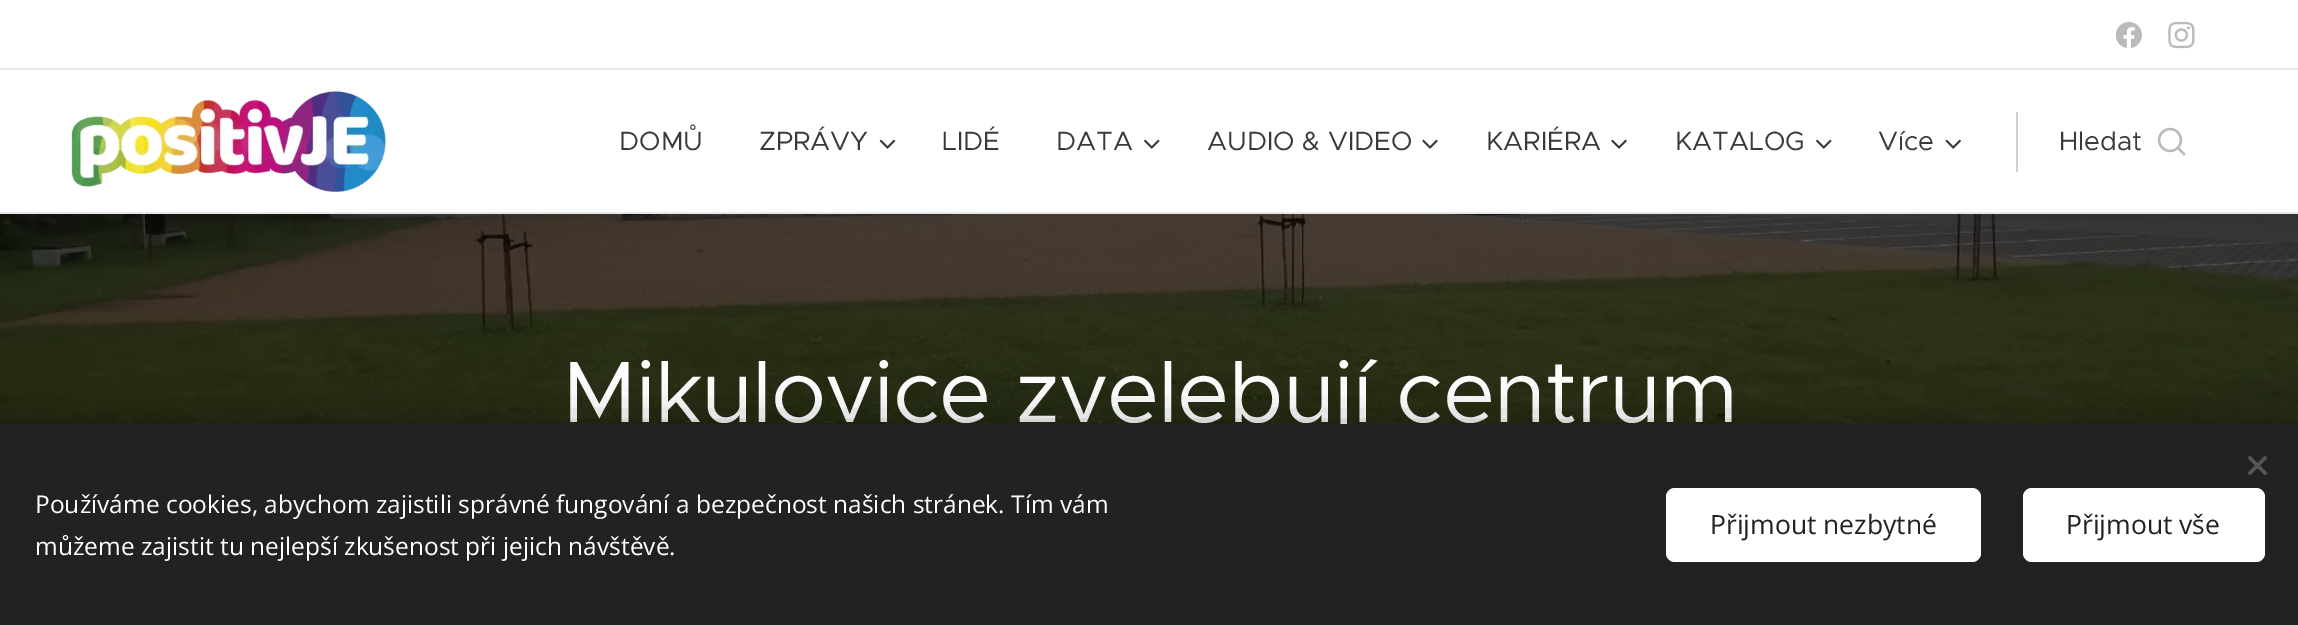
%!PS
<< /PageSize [2298 625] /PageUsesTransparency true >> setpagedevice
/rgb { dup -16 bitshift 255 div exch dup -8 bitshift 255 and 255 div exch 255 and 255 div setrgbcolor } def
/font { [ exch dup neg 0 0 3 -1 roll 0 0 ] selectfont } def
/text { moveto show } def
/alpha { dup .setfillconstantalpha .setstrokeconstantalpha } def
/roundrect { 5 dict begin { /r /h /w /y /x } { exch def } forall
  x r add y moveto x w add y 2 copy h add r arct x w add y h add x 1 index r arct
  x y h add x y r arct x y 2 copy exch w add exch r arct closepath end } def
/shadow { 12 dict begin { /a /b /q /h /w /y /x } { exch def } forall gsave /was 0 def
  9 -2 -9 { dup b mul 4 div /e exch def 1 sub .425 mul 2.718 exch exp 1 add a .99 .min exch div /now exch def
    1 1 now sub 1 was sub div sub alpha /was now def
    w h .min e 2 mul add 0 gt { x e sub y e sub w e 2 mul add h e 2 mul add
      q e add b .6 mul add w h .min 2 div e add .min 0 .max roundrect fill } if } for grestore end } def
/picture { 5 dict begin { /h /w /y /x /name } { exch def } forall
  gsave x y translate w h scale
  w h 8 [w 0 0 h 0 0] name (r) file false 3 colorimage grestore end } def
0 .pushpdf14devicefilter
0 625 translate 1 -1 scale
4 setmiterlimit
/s1 { /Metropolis-Regular 26.5 font 16#393939 rgb } def
/s2 { /OpenSans-Regular 24.5 font 16#FFFFFF rgb } def
/s3 { /OpenSans-Regular 26.5 font 16#222222 rgb } def
16#FFFFFF rgb
0 0 2298 625 rectfill
(pic1.raw) 2116 22 26 26 picture
(pic2.raw) 2168 21 27 28 picture
16#E8E8E8 rgb
0 68 2298 2 rectfill
(pic3.raw) 71 91 315 101 picture
s1
(DOMŮ) 619 150 text
(ZPRÁVY) 759 150 text
(pic4.raw) 879 139 17 10 picture
(LIDÉ) 942 150 text
(DATA) 1056 150 text
(pic5.raw) 1144 139 16 10 picture
(AUDIO & VIDEO) 1207 150 text
(pic6.raw) 1422 139 16 10 picture
(KARIÉRA) 1486 150 text
(pic6.raw) 1611 139 16 10 picture
(KATALOG) 1675 150 text
(pic5.raw) 1816 139 16 10 picture
(Více) 1878 150 text
(pic7.raw) 1945 139 16 10 picture
16#D1D1D1 rgb
2016 112 2 60 rectfill
s1
(Hledat) 2059 150 text
(pic8.raw) 2157 127 29 29 picture
16#E8E8E8 rgb
0 212 2298 2 rectfill
(pic9.raw) 0 214 2298 210 picture
/Metropolis-Regular 87.5 font
16#FFFFFF rgb
562 422 moveto -0.9 0 (Mikulovice zvelebují centrum) ashow
16#000000 rgb
0 424 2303 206 0 22 0.33 shadow
16#222222 rgb
0 424 2298 201 rectfill
16#555555 rgb
2247.5 473 moveto 2265 455.5 lineto 2267.5 458 lineto 2250 475.5 lineto closepath fill
2250 455.5 moveto 2267.5 473 lineto 2265 475.5 lineto 2247.5 458 lineto closepath fill
s2
(Používáme cookies, abychom zajistili správné fungování a bezpečnost našich stránek. Tím vám) 35 513 text
(můžeme zajistit tu nejlepší zkušenost při jejich návštěvě.) 35 555 text
1666 488 315 74 9 roundrect fill
s3
(Přijmout nezbytné) 1710 534 text
16#FFFFFF rgb
2023 488 242 74 9 roundrect fill
s3
(Přijmout vše) 2066 534 text
.poppdf14devicefilter showpage
